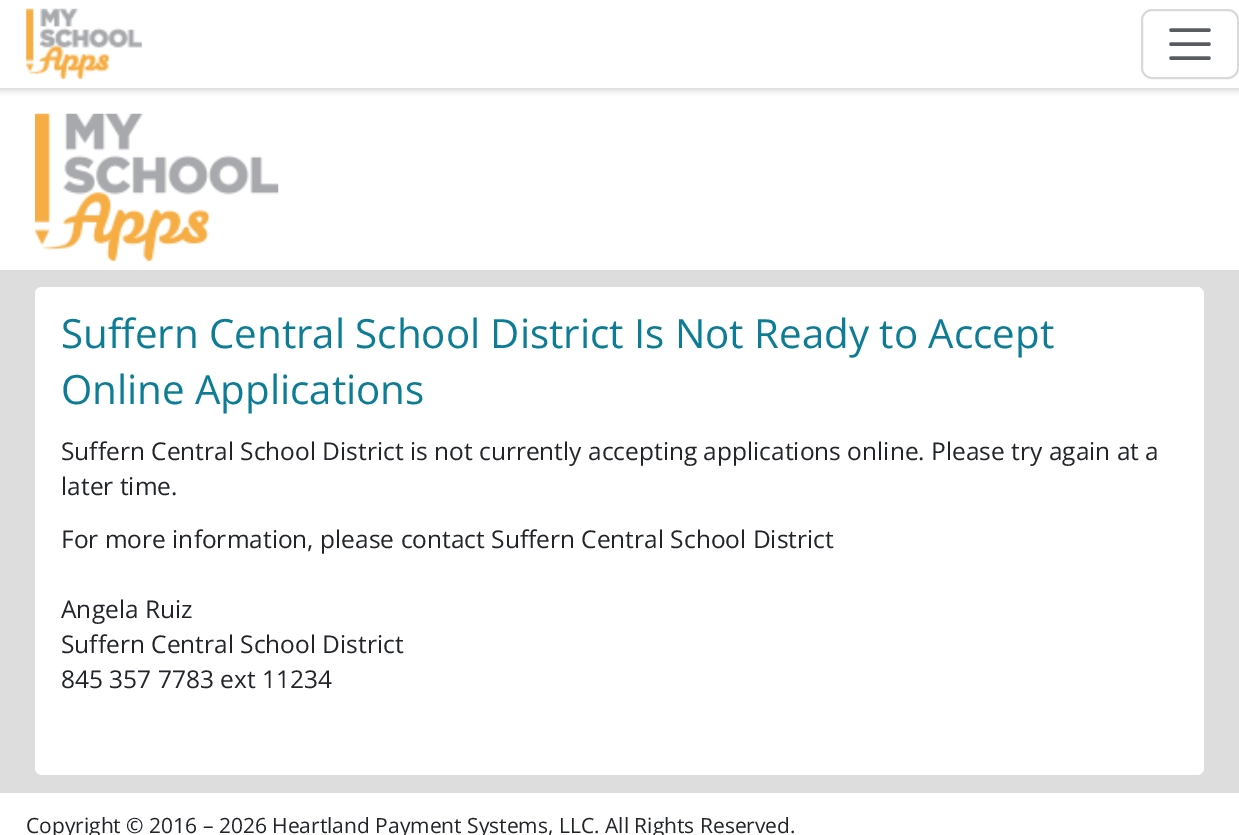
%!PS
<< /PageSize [1239 835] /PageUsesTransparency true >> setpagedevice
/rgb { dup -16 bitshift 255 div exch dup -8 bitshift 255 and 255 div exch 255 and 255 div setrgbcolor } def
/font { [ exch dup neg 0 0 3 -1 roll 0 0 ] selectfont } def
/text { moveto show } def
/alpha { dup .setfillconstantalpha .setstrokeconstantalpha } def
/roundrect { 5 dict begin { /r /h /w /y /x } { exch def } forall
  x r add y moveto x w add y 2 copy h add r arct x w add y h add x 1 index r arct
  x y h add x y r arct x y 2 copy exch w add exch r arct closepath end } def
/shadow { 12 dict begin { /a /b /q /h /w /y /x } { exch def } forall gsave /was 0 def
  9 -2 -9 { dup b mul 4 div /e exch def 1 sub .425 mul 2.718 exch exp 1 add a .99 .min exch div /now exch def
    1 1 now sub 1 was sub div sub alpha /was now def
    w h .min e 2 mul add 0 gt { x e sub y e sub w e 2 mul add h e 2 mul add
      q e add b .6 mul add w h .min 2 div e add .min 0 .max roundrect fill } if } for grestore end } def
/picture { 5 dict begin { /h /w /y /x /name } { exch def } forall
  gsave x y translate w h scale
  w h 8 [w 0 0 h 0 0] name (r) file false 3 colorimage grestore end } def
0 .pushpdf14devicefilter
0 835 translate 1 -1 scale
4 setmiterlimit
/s1 { /OpenSans-Regular 40.25 font 16#0D7D96 rgb } def
/s2 { /OpenSans-Regular 24.5 font 16#212529 rgb } def
/s3 { /OpenSans-Regular 21 font 16#212529 rgb } def
16#FFFFFF rgb
0 0 1239 835 rectfill
16#000000 rgb
-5 -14 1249 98 0 5 0.75 shadow
16#FFFFFF rgb
0 0 1239 88 rectfill
(pic1.raw) 26 8 116 71 picture
16#D9D9D9 rgb
2 setlinewidth
1142 10 96 68 10 roundrect stroke
16#595C5F rgb
3.5 setlinewidth
1 setlinecap
1171 30 moveto 1209 30 lineto 1171 44 moveto 1209 44 lineto 1171 58 moveto 1209 58 lineto stroke
(pic2.raw) 35 113 244 148 picture
16#DDDDDD rgb
0 270 1239 523 rectfill
16#FFFFFF rgb
35 287 1169 488 7 roundrect fill
s1
(Suffern Central School District Is Not Ready to Accept) 61 348 text
(Online Applications) 61 404 text
s2
(Suffern Central School District is not currently accepting applications online. Please try again at a) 61 460 text
(later time.) 61 495 text
(For more information, please contact Suffern Central School District) 61 548 text
(Angela Ruiz) 61 618 text
(Suffern Central School District) 61 653 text
(845 357 7783 ext 11234) 61 688 text
s3
(Copyright © 2016 – 2026 Heartland Payment Systems, LLC. All Rights Reserved.) 26 833 text
.poppdf14devicefilter showpage
